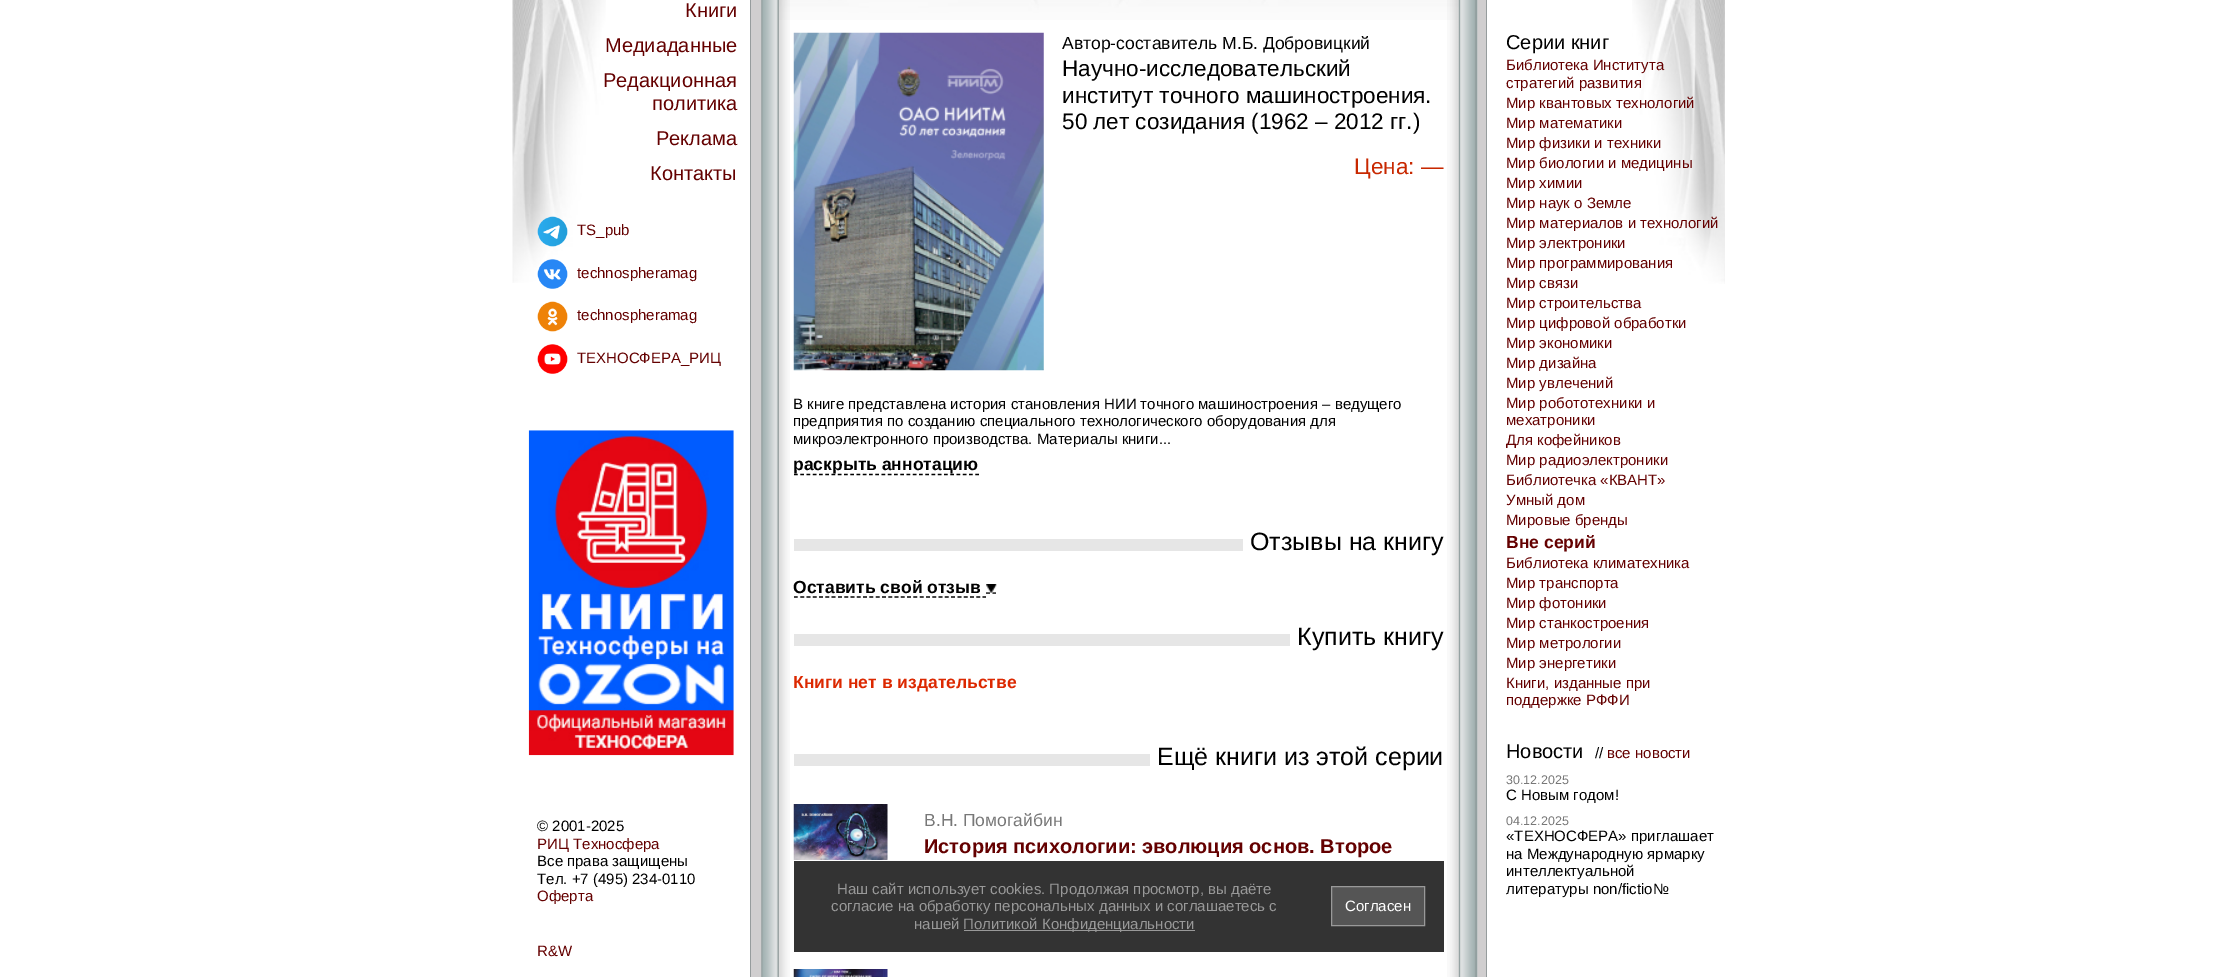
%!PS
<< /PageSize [2236 977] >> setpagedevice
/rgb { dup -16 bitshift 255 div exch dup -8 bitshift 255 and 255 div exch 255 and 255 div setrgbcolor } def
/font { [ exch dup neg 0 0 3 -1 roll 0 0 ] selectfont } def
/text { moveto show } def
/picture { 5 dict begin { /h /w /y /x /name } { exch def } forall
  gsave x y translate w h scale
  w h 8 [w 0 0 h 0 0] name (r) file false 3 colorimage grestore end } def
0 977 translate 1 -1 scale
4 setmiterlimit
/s1 { /LiberationSans-Regular 20 font 16#640000 rgb } def
/s2 { /LiberationSans-Regular 15 font 16#640000 rgb } def
/s3 { /LiberationSans-Regular 15 font 16#000000 rgb } def
/s4 { /LiberationSans-Regular 17.5 font 16#000000 rgb } def
/s5 { /LiberationSans-Regular 22.5 font 16#000000 rgb } def
/s6 { /LiberationSans-Regular 22.5 font 16#C82800 rgb } def
/s7 { /LiberationSans-Bold 17.5 font 16#000000 rgb } def
/s8 { /LiberationSans-Regular 25 font 16#000000 rgb } def
/s9 { /LiberationSans-Bold 17.5 font 16#DC2800 rgb } def
/s10 { /LiberationSans-Regular 17.5 font 16#787878 rgb } def
/s11 { /LiberationSans-Bold 20 font 16#640000 rgb } def
/s12 { /LiberationSans-Regular 20 font 16#000000 rgb } def
/s13 { /LiberationSans-Bold 17.5 font 16#640000 rgb } def
/s14 { /LiberationSans-Regular 12.5 font 16#787878 rgb } def
/s15 { /LiberationSans-Regular 15 font 16#999999 rgb } def
/s16 { /LiberationSans-Regular 15 font 16#FFFFFF rgb } def
16#FFFFFF rgb
0 0 2236 977 rectfill
(pic1.raw) 512 0 94 283 picture
16#969C9D rgb
750 0 1 977 rectfill
s1
(Книги) 685 17 text
(Медиаданные) 605 52 text
(Редакционная) 603 87 text
(политика) 652 110 text
(Реклама) 656 145 text
(Контакты) 650 180 text
(pic2.raw) 537 216 31 31 picture
s2
(TS_pub) 577 235 text
(pic3.raw) 537 259 31 30 picture
(technospheramag) 577 278 text
(pic4.raw) 537 301 31 31 picture
(technospheramag) 577 320 text
(pic5.raw) 537 344 31 30 picture
(ТЕХНОСФЕРА_РИЦ) 577 363 text
(pic6.raw) 528 430 206 326 picture
s3
(© 2001-2025) 537 831 text
s2
(РИЦ Техносфера) 537 849 text
s3
(Все права защищены) 537 866 text
(Тел. +7 \(495\) 234-0110) 537 884 text
s2
(Оферта) 537 901 text
(R&W) 537 956 text
16#D0CECF rgb
751 0 28 977 rectfill
(pic7.raw) 761 0 18 977 picture
(pic9.raw) 779 0 680 20 picture
(pic8.raw) 778 0 12 977 picture
(pic10.raw) 793 32 251 339 picture
s4
(Автор-составитель М.Б. Добровицкий) 1062 49 text
s5
(Научно-исследовательский) 1062 76 text
(институт точного машиностроения.) 1062 103 text
(50 лет созидания \(1962 – 2012 гг.\)) 1062 129 text
s6
(Цена: —) 1354 174 text
s3
(В книге представлена история становления НИИ точного машиностроения – ведущего) 793 409 text
(предприятия по созданию специального технологического оборудования для) 793 426 text
(микроэлектронного производства. Материалы книги...) 793 444 text
1.2 setlinewidth
[3.75 2.5] 0 setdash
794 474.5 moveto 979 474.5 lineto stroke
s7
(раскрыть аннотацию) 793 470 text
16#E6E6E6 rgb
794 539 449 12 rectfill
s8
(Отзывы на книгу) 1250 550 text
s7
(Оставить свой отзыв) 793 593 text
[3.75 2.54] 0 setdash
794 597 moveto 986 597 lineto stroke
[] 0 setdash
986 593 moveto 990 593 lineto 992.5 593 moveto 996 593 lineto stroke
(pic11.raw) 986 584 11 9 picture
16#E6E6E6 rgb
794 634 496 12 rectfill
s8
(Купить книгу) 1297 645 text
s9
(Книги нет в издательстве) 793 688 text
16#E6E6E6 rgb
794 754 356 12 rectfill
s8
(Ещё книги из этой серии) 1157 765 text
(pic12.raw) 793 804 95 56 picture
s10
(В.Н. Помогайбин) 924 826 text
s11
(История психологии: эволюция основ. Второе) 924 853 text
(pic13.raw) 793 969 95 8 picture
16#D0CECF rgb
1477 0 9 977 rectfill
(pic14.raw) 1458 0 20 977 picture
(pic15.raw) 1447 0 12 977 picture
(pic16.raw) 1632 0 93 284 picture
16#969C9D rgb
1486 0 1 977 rectfill
s12
(Серии книг) 1506 49 text
s2
(Библиотека Института) 1506 70 text
(стратегий развития) 1506 88 text
(Мир квантовых технологий) 1506 108 text
(Мир математики) 1506 128 text
(Мир физики и техники) 1506 148 text
(Мир биологии и медицины) 1506 168 text
(Мир химии) 1506 188 text
(Мир наук о Земле) 1506 208 text
(Мир материалов и технологий) 1506 228 text
(Мир электроники) 1506 248 text
(Мир программирования) 1506 268 text
(Мир связи) 1506 288 text
(Мир строительства) 1506 308 text
(Мир цифровой обработки) 1506 328 text
(Мир экономики) 1506 348 text
(Мир дизайна) 1506 368 text
(Мир увлечений) 1506 388 text
(Мир робототехники и) 1506 408 text
(мехатроники) 1506 425 text
(Для кофейников) 1506 445 text
(Мир радиоэлектроники) 1506 465 text
(Библиотечка «КВАНТ») 1506 485 text
(Умный дом) 1506 505 text
(Мировые бренды) 1506 525 text
s13
(Вне серий) 1506 548 text
s2
(Библиотека климатехника) 1506 568 text
(Мир транспорта) 1506 588 text
(Мир фотоники) 1506 608 text
(Мир станкостроения) 1506 628 text
(Мир метрологии) 1506 648 text
(Мир энергетики) 1506 668 text
(Книги, изданные при) 1506 688 text
(поддержке РФФИ) 1506 705 text
s12
(Новости) 1506 758 text
s3
(//) 1595 758 text
s2
(все новости) 1607 758 text
s14
(30.12.2025) 1506 784 text
s3
(С Новым годом!) 1506 800 text
s14
(04.12.2025) 1506 825 text
s3
(«ТЕХНОСФЕРА» приглашает) 1506 841 text
(на Международную ярмарку) 1506 859 text
(интеллектуальной) 1506 876 text
(литературы non/fictio№) 1506 894 text
16#333333 rgb
794 861 650 91 rectfill
s15
(Наш сайт использует cookies. Продолжая просмотр, вы даёте) 837 894 text
(согласие на обработку персональных данных и соглашаетесь с) 831 911 text
(нашей) 914 929 text
964 930 231 1 rectfill
(Политикой Конфиденциальности) 963 929 text
16#555555 rgb
1331.5 886.5 moveto 1424.5 886.5 lineto 1424.5 925.5 lineto 1331.5 925.5 lineto closepath gsave fill grestore
16#999999 rgb
1 setlinewidth
stroke
s16
(Согласен) 1345 911 text
showpage
